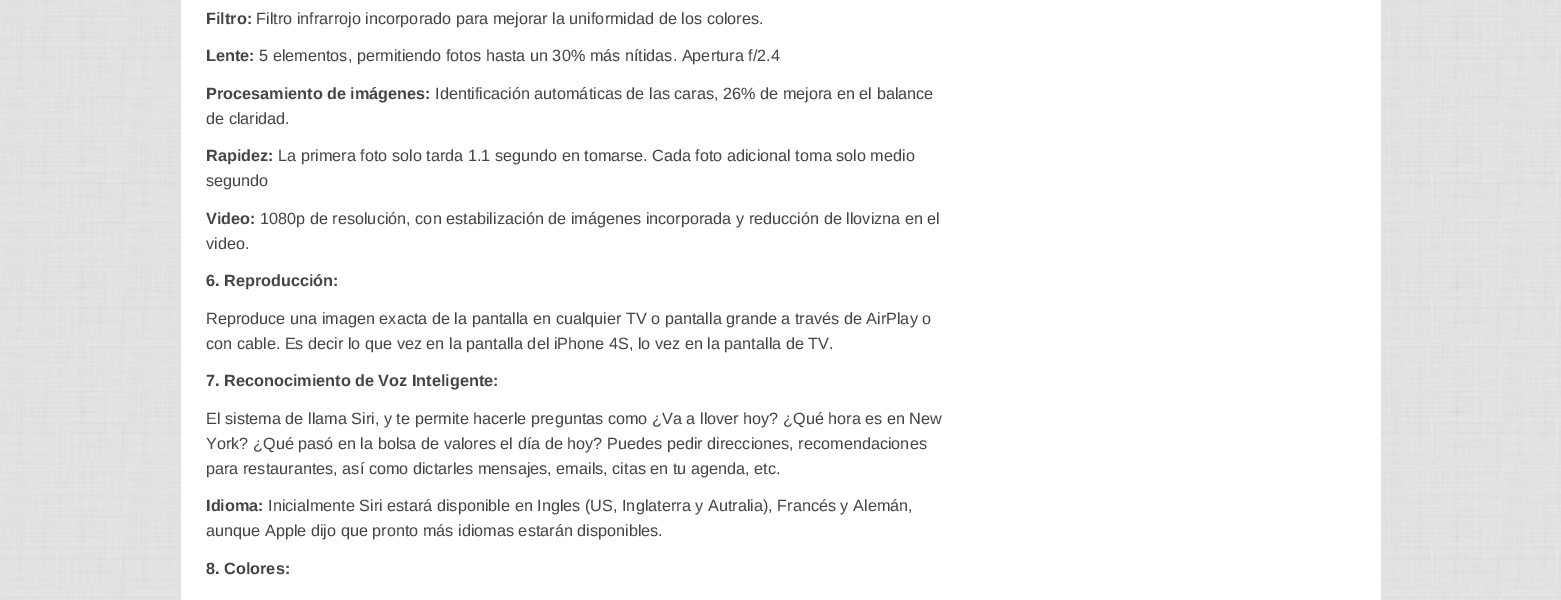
%!PS
<< /PageSize [1561 600] >> setpagedevice
/rgb { dup -16 bitshift 255 div exch dup -8 bitshift 255 and 255 div exch 255 and 255 div setrgbcolor } def
/font { [ exch dup neg 0 0 3 -1 roll 0 0 ] selectfont } def
/text { moveto show } def
/picture { 5 dict begin { /h /w /y /x /name } { exch def } forall
  gsave x y translate w h scale
  w h 8 [w 0 0 h 0 0] name (r) file false 3 colorimage grestore end } def
0 600 translate 1 -1 scale
4 setmiterlimit
/s1 { /LiberationSans-Bold 16.25 font 16#444444 rgb } def
/s2 { /LiberationSans-Regular 16.25 font 16#444444 rgb } def
16#FFFFFF rgb
0 0 1561 600 rectfill
(pic1.raw) 0 0 1561 600 picture
181 0 1200 600 rectfill
s1
(Filtro:) 206 24 text
s2
(Filtro infrarrojo incorporado para mejorar la uniformidad de los colores.) 256 24 text
s1
(Lente:) 206 61 text
s2
(5 elementos, permitiendo fotos hasta un 30% más nítidas. Apertura f/2.4) 259 61 text
s1
(Procesamiento de imágenes:) 206 99 text
s2
(Identificación automáticas de las caras, 26% de mejora en el balance) 435 99 text
(de claridad.) 206 124 text
s1
(Rapidez:) 206 161 text
s2
(La primera foto solo tarda 1.1 segundo en tomarse. Cada foto adicional toma solo medio) 278 161 text
(segundo) 206 186 text
s1
(Video:) 206 224 text
s2
(1080p de resolución, con estabilización de imágenes incorporada y reducción de llovizna en el) 260 224 text
(video.) 206 249 text
s1
(6. Reproducción:) 206 286 text
s2
(Reproduce una imagen exacta de la pantalla en cualquier TV o pantalla grande a través de AirPlay o) 206 324 text
(con cable. Es decir lo que vez en la pantalla del iPhone 4S, lo vez en la pantalla de TV.) 206 349 text
s1
(7. Reconocimiento de Voz Inteligente:) 206 386 text
s2
(El sistema de llama Siri, y te permite hacerle preguntas como ¿Va a llover hoy? ¿Qué hora es en New) 206 424 text
(York? ¿Qué pasó en la bolsa de valores el día de hoy? Puedes pedir direcciones, recomendaciones) 206 449 text
(para restaurantes, así como dictarles mensajes, emails, citas en tu agenda, etc.) 206 474 text
s1
(Idioma:) 206 511 text
s2
(Inicialmente Siri estará disponible en Ingles \(US, Inglaterra y Autralia\), Francés y Alemán,) 268 511 text
(aunque Apple dijo que pronto más idiomas estarán disponibles.) 206 536 text
s1
(8. Colores:) 206 574 text
showpage
